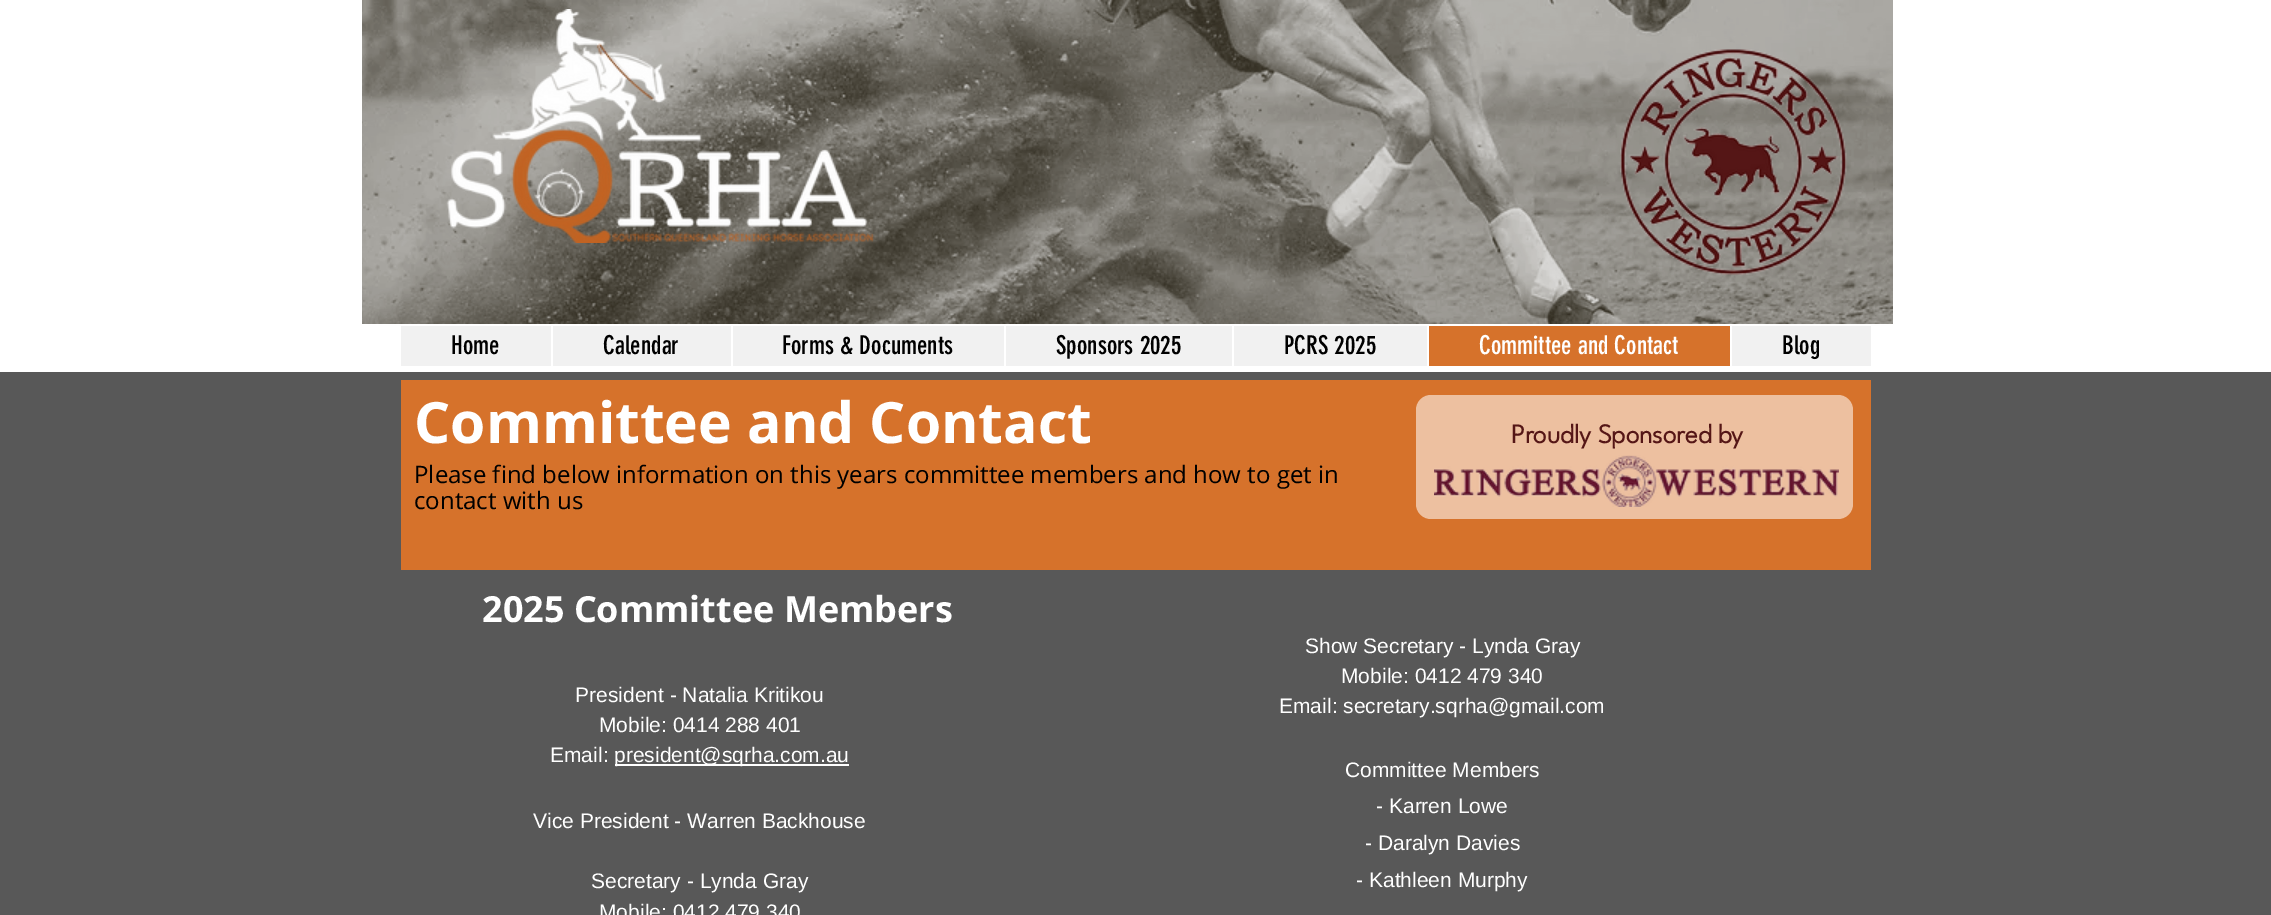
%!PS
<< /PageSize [2271 915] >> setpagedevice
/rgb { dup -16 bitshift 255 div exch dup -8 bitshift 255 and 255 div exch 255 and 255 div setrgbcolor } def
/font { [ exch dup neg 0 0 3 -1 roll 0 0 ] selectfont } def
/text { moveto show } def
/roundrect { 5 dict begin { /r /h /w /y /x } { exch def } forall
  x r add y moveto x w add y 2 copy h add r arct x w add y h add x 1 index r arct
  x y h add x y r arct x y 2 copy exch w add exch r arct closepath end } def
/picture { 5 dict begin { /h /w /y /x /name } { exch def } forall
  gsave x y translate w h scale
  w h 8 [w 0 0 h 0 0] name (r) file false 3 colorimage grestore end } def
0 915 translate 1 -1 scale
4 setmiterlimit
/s1 { /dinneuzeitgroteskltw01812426-Regular 25.5 font 16#000000 rgb } def
/s2 { /dinneuzeitgroteskltw01812426-Regular 25.5 font 16#FFFFFF rgb } def
/s3 { /OpenSans-Bold 57 font 16#FFFFFF rgb } def
/s4 { /LeagueSpartan-Bold 27 font 16#551616 rgb } def
/s5 { /OpenSans-Regular 24 font 16#000000 rgb } def
/s6 { /OpenSans-Bold 36 font 16#FFFFFF rgb } def
/s7 { /LiberationSans-Regular 21 font 16#FFFFFF rgb } def
16#FFFFFF rgb
0 0 2271 915 rectfill
(pic1.raw) 362 0 1531 324 picture
(pic2.raw) 446 9 428 234 picture
(pic3.raw) 1620 49 227 226 picture
16#F1F1F1 rgb
401 326 1470 40 rectfill
s1
(Home) 451 354 text
16#FFFFFF rgb
551 326 2 40 rectfill
s1
(Calendar) 603 354 text
16#FFFFFF rgb
731 326 2 40 rectfill
s1
(Forms & Documents) 782 354 text
16#FFFFFF rgb
1004 326 2 40 rectfill
s1
(Sponsors 2025) 1056 354 text
16#FFFFFF rgb
1232 326 2 40 rectfill
s1
(PCRS 2025) 1284 354 text
16#D6722B rgb
1429 326 301 40 rectfill
16#FFFFFF rgb
1427 326 2 40 rectfill
(Committee and Contact) 1479 354 text
1730 326 2 40 rectfill
s1
(Blog) 1782 354 text
16#585858 rgb
0 372 2271 543 rectfill
16#D6722B rgb
401 380 1470 190 rectfill
s3
(Committee and Contact) 414 443 text
16#EDC0A0 rgb
1416 395 437 124 15 roundrect fill
s4
(Proudly Sponsored by) 1511 443 text
(pic4.raw) 1434 455 405 52 picture
s5
(Please find below information on this years committee members and how to get in) 414 483 text
(contact with us) 414 509 text
s6
(2025 Committee Members) 482 622 text
s7
(President - Natalia Kritikou) 575 702 text
(Mobile: 0414 288 401) 599 732 text
(Email:) 550 762 text
615 764 234 2 rectfill
(president@sqrha.com.au) 614 762 text
(Vice President - Warren Backhouse) 533 828 text
(Secretary - Lynda Gray) 591 888 text
(Mobile: 0412 479 340) 599 919 text
(Show Secretary - Lynda Gray) 1305 653 text
(Mobile: 0412 479 340) 1341 683 text
(Email: secretary.sqrha@gmail.com) 1279 713 text
(Committee Members) 1345 777 text
(- Karren Lowe) 1376 813 text
(- Daralyn Davies) 1365 850 text
(- Kathleen Murphy) 1356 887 text
showpage
